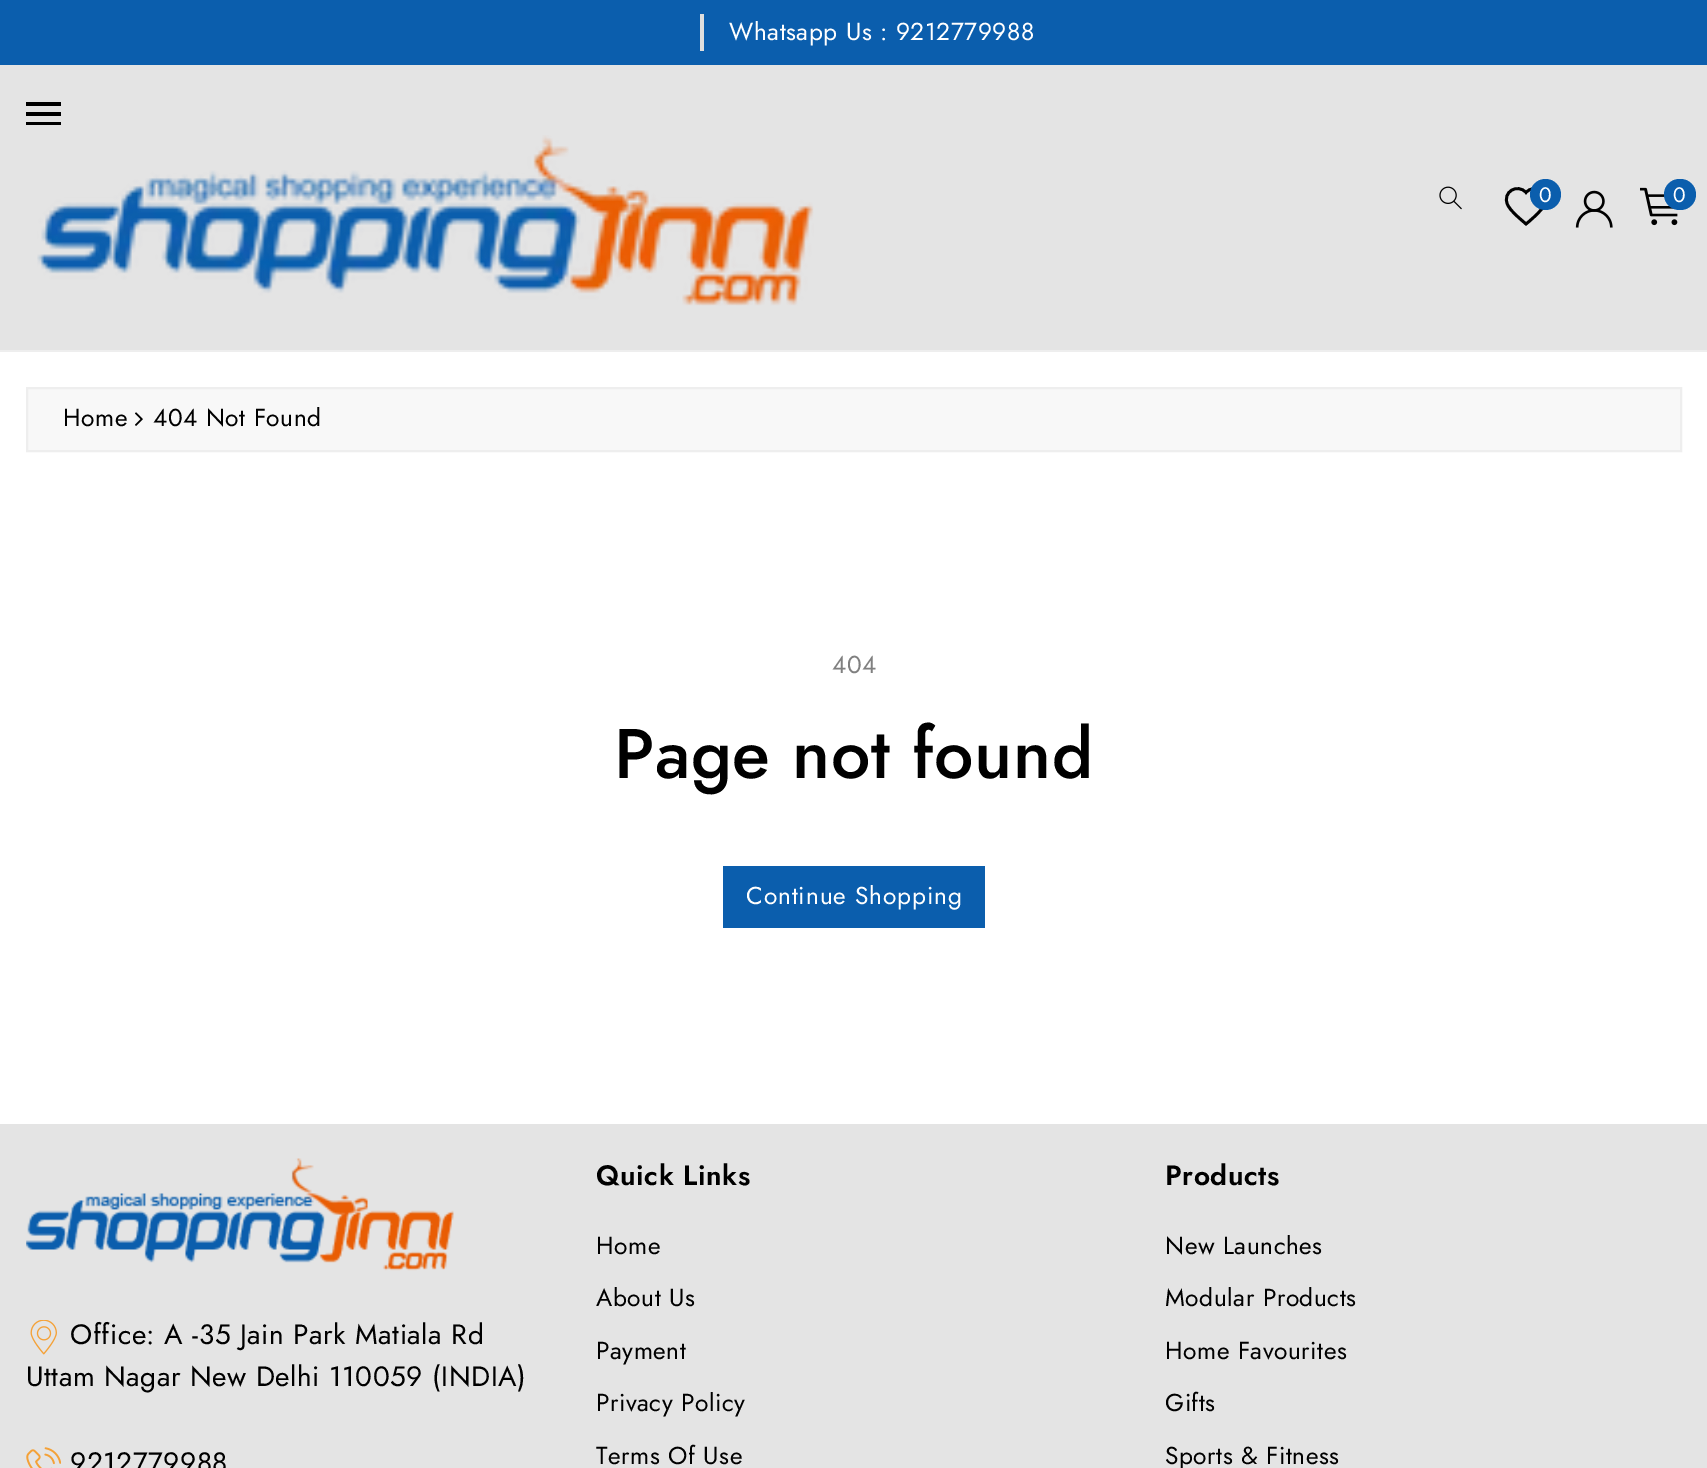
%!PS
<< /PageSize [1707 1468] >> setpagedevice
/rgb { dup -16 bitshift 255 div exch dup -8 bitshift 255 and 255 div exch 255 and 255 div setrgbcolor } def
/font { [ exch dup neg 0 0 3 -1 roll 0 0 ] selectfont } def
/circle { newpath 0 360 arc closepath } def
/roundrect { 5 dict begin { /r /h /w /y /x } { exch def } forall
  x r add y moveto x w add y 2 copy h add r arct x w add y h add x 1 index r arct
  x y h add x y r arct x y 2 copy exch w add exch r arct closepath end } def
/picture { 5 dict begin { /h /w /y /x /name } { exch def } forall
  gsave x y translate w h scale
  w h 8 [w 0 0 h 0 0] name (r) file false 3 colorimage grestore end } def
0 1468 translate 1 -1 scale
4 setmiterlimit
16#FFFFFF rgb
0 0 1707 1468 rectfill
16#0B5EAD rgb
0 0 1707 65 rectfill
16#DEDEDE rgb
700 14 4 37 rectfill
/Jost-Regular 24.5 font
16#FFFFFF rgb
729 40 moveto 0.55 0 (Whatsapp Us : 9212779988) ashow
16#EEEEEE rgb
0 350 1707 2 rectfill
16#E4E4E4 rgb
0 65 1707 285 rectfill
16#000000 rgb
26 102 35 4 rectfill
26 112 35 4 rectfill
26 122 35 3 rectfill
(pic1.raw) 37 135 777 171 picture
(pic2.raw) 1439 186 23 24 picture
2.8 setlinewidth
1 setlinecap
1526 224 moveto 1520 218.5 1511 212 1507.5 204.5 curveto 1502 192 1517.5 183 1526 192.5 curveto 1534.5 183 1550 192 1544.5 204.5 curveto 1541 211.5 1534.5 216.5 1529 221.5 curveto closepath stroke
16#0B5EAD rgb
1545.5 194.5 15.5 circle fill
/Jost-Regular 21 font
16#FFFFFF rgb
1539 202 moveto 0.55 0 (0) ashow
(pic3.raw) 1575 190 38 38 picture
(pic4.raw) 1640 187 38 39 picture
16#0B5EAD rgb
1664 179 32 31 15.5 roundrect fill
16#FFFFFF rgb
1673 202 moveto 0.55 0 (0) ashow
16#F8F8F8 rgb
27 388 moveto 1681 388 lineto 1681 451 lineto 27 451 lineto closepath gsave fill grestore
16#EEEEEE rgb
2 setlinewidth
0 setlinecap
stroke
/Jost-Regular 24.5 font
16#000000 rgb
63 426 moveto 0.55 0 (Home) ashow
(pic5.raw) 135 412 8 14 picture
153 426 moveto 0.55 0 (404 Not Found) ashow
16#808080 rgb
832 673 moveto 0.55 0 (404) ashow
/Jost-Medium 70 font
16#000000 rgb
614 778 moveto 0.55 0 (Page not found) ashow
16#0B5EAD rgb
723 866 262 62 rectfill
/Jost-Regular 24.5 font
16#FFFFFF rgb
746 904 moveto 0.9 0 (Continue Shopping) ashow
16#E4E4E4 rgb
0 1124 1707 344 rectfill
(pic6.raw) 26 1158 428 113 picture
(pic7.raw) 30 1320 27 35 picture
/Jost-Regular 28 font
16#000000 rgb
70 1344 moveto 0.55 0 (Office: A -35 Jain Park Matiala Rd) ashow
26 1386 moveto 0.55 0 (Uttam Nagar New Delhi 110059 \(INDIA\)) ashow
(pic8.raw) 26 1447 35 21 picture
70 1472 moveto 0.55 0 (9212779988) ashow
/Jost-SemiBold 28 font
596 1185 moveto 0.55 0 (Quick Links) ashow
/Jost-Regular 24.5 font
596 1254 moveto 0.55 0 (Home) ashow
596 1306 moveto 0.55 0 (About Us) ashow
596 1359 moveto 0.55 0 (Payment) ashow
596 1411 moveto 0.55 0 (Privacy Policy) ashow
596 1464 moveto 0.55 0 (Terms Of Use) ashow
/Jost-SemiBold 28 font
1165 1185 moveto 0.55 0 (Products) ashow
/Jost-Regular 24.5 font
1165 1254 moveto 0.55 0 (New Launches) ashow
1165 1306 moveto 0.55 0 (Modular Products) ashow
1165 1359 moveto 0.55 0 (Home Favourites) ashow
1165 1411 moveto 0.55 0 (Gifts) ashow
1165 1464 moveto 0.55 0 (Sports & Fitness) ashow
showpage
